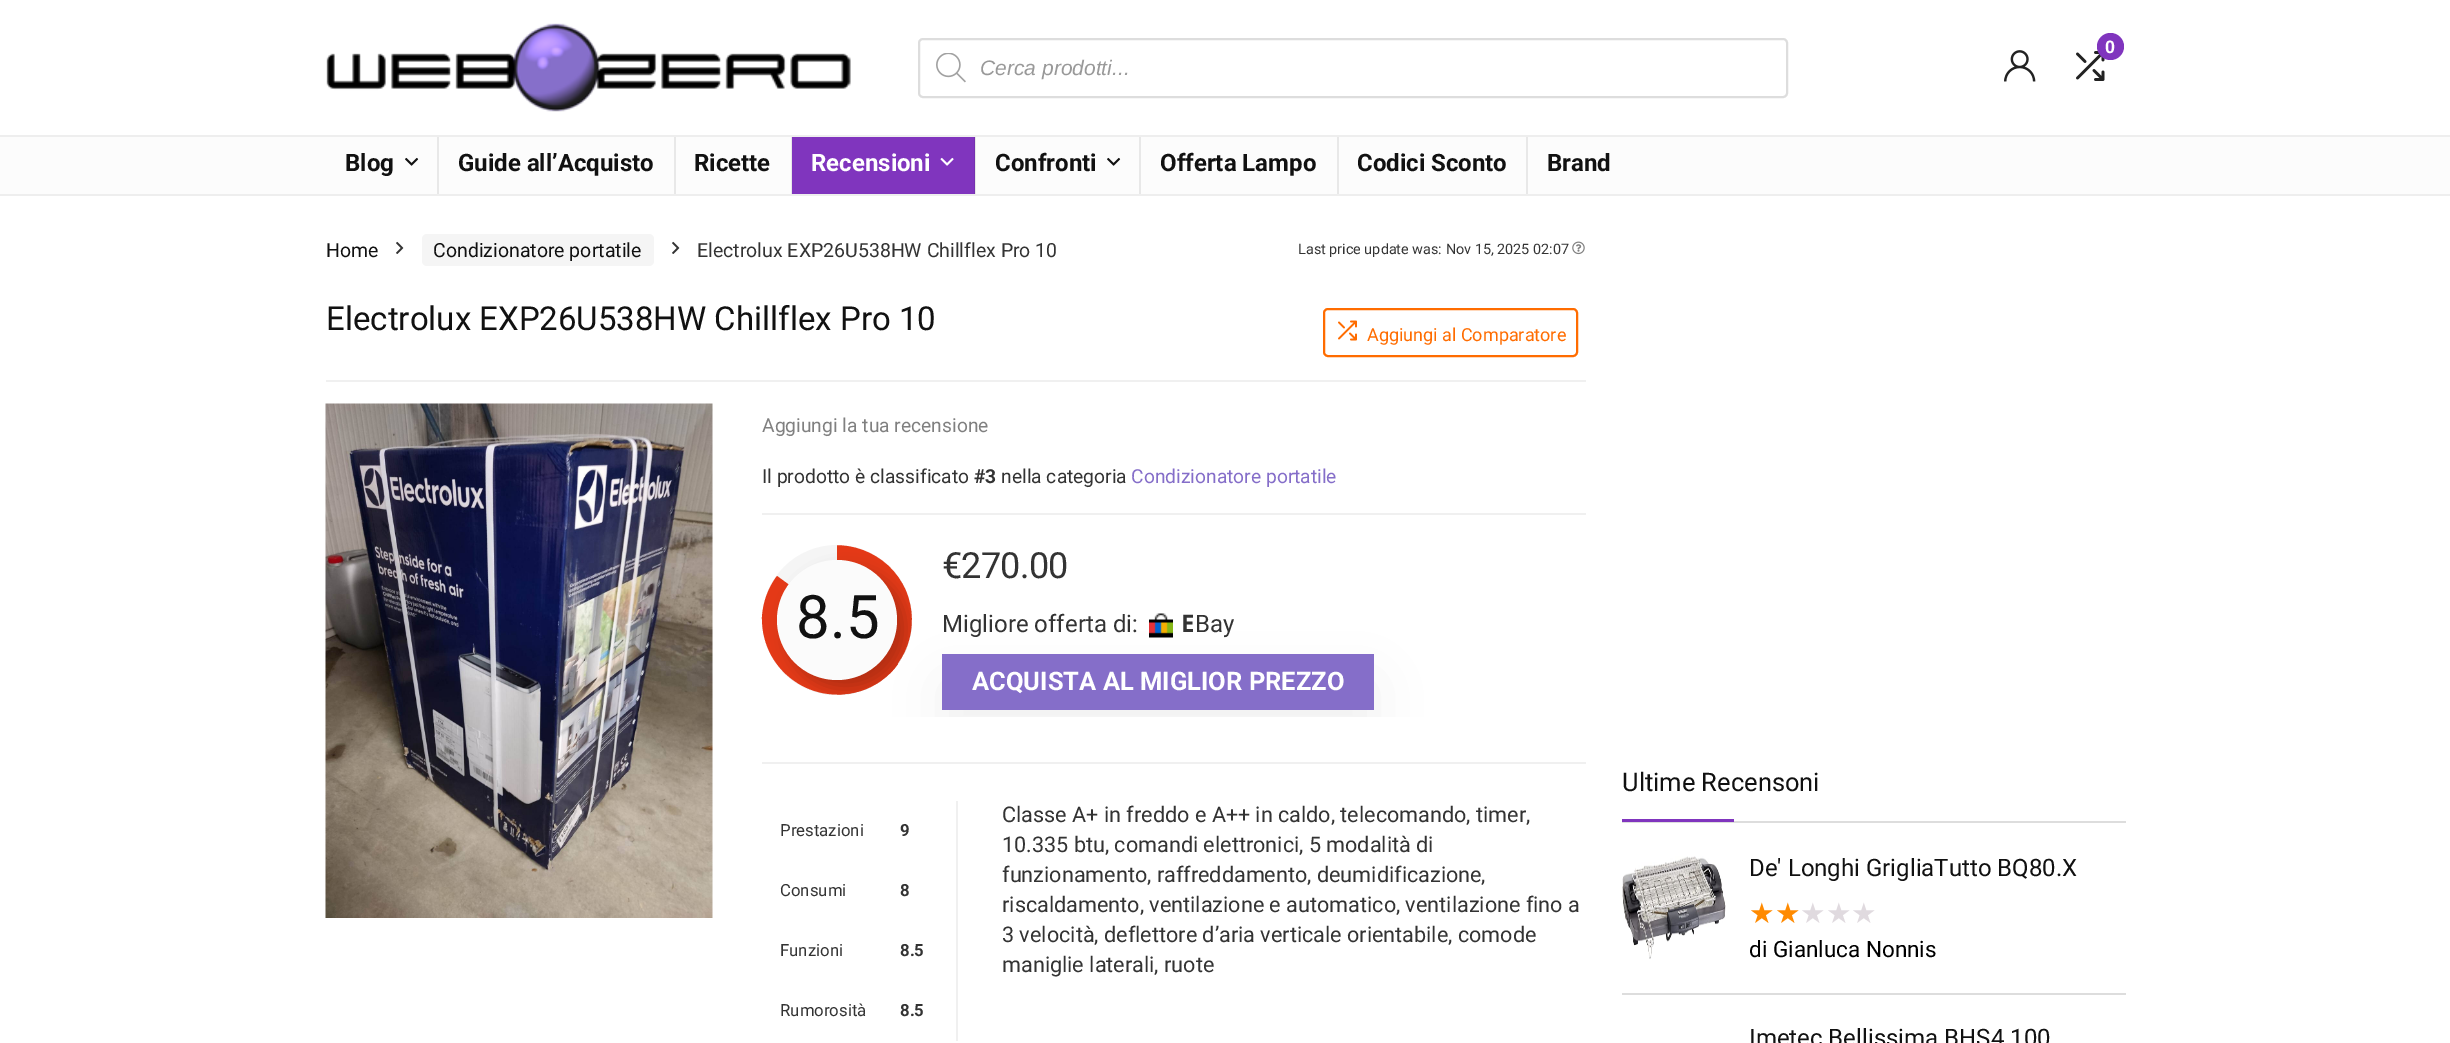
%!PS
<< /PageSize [2450 1043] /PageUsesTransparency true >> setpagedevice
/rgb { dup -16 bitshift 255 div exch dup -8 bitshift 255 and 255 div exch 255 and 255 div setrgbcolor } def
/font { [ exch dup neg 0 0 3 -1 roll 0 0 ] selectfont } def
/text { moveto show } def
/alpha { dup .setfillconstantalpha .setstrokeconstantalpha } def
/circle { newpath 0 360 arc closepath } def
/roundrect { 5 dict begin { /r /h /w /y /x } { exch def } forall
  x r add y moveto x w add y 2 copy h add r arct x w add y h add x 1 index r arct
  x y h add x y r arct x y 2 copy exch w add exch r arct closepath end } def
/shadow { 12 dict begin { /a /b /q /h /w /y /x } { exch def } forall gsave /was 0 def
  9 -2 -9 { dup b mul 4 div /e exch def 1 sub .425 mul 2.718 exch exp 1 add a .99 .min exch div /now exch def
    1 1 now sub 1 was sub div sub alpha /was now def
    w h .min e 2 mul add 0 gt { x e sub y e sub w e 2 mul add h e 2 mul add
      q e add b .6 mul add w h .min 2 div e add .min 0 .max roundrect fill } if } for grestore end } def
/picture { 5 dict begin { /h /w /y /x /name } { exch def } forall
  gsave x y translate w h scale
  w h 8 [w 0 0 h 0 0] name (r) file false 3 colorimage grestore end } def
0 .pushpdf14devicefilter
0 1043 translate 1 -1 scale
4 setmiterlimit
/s1 { /LiberationSans-Bold 18 font 16#FFFFFF rgb } def
/s2 { /LiberationSans-Italic 21 font 16#999999 rgb } def
/s3 { /Roboto-Bold 24 font 16#111111 rgb } def
/s4 { /Roboto-Bold 24 font 16#FFFFFF rgb } def
/s5 { /Roboto-Regular 19.5 font 16#111111 rgb } def
/s6 { /Roboto-Regular 19.5 font 16#333333 rgb } def
/s7 { /Roboto-Regular 14.4 font 16#333333 rgb } def
/s8 { /Roboto-Regular 33 font 16#111111 rgb } def
/s9 { /Roboto-Regular 18 font 16#FF6C00 rgb } def
/s10 { /Roboto-Regular 19.25 font 16#808080 rgb } def
/s11 { /Roboto-Regular 19.25 font 16#333333 rgb } def
/s12 { /Roboto-Bold 19.25 font 16#333333 rgb } def
/s13 { /Roboto-Regular 19.25 font 16#856EC9 rgb } def
/s14 { /Roboto-Regular 60 font 16#111111 rgb } def
/s15 { /Roboto-Regular 24 font 16#333333 rgb } def
/s16 { /NotoSans-Bold 24 font 16#333333 rgb } def
/s17 { /Roboto-Bold 25.5 font 16#FFFFFF rgb } def
/s18 { /Roboto-Regular 16.75 font 16#333333 rgb } def
/s19 { /Roboto-Bold 16.75 font 16#333333 rgb } def
/s20 { /Roboto-Regular 21.6 font 16#333333 rgb } def
/s21 { /Roboto-Regular 25.5 font 16#111111 rgb } def
/s22 { /Roboto-Regular 24 font 16#111111 rgb } def
/s23 { /DejaVuSans-Regular 28.5 font 16#FF8A00 rgb } def
/s24 { /DejaVuSans-Regular 28.5 font 16#E0DADF rgb } def
/s25 { /Roboto-Regular 22.5 font 16#000000 rgb } def
16#FFFFFF rgb
0 0 2450 1043 rectfill
(pic1.raw) 326 23 525 89 picture
(pic2.raw) 2076 51 29 30 picture
16#8035BE rgb
2110.5 46.5 13.5 circle fill
s1
(0) 2105 53 text
(pic3.raw) 2004 50 32 32 picture
16#DDDDDD rgb
2 setlinewidth
919 39 868 58 4 roundrect stroke
(pic4.raw) 936 53 30 30 picture
s2
(Cerca prodotti...) 980 75 text
16#FCFCFC rgb
0 137 2450 57 rectfill
16#E8E8E8 rgb
975 137 1 57 rectfill
16#EEEEEE rgb
0 135 2450 2 rectfill
0 194 2450 2 rectfill
16#E8E8E8 rgb
437 137 2 57 rectfill
s3
(Blog) 345 171 text
(pic5.raw) 405 157 14 9 picture
16#E8E8E8 rgb
674 137 2 57 rectfill
s3
(Guide all’Acquisto) 458 171 text
16#E8E8E8 rgb
791 137 1 57 rectfill
s3
(Ricette) 694 171 text
16#8035BE rgb
792 137 182 57 rectfill
16#7631AF rgb
974 137 1 57 rectfill
s4
(Recensioni) 811 171 text
(pic6.raw) 940 157 14 9 picture
16#E8E8E8 rgb
1139 137 2 57 rectfill
s3
(Confronti) 995 171 text
(pic5.raw) 1107 157 14 9 picture
16#E8E8E8 rgb
1337 137 2 57 rectfill
s3
(Offerta Lampo) 1160 171 text
16#E8E8E8 rgb
1526 137 2 57 rectfill
s3
(Codici Sconto) 1357 171 text
(Brand) 1547 171 text
s5
(Home) 326 257 text
(pic7.raw) 396 241 8 13 picture
16#F5F5F5 rgb
422 234 232 32 5 roundrect fill
s5
(Condizionatore portatile) 433 257 text
(pic7.raw) 672 241 8 13 picture
s6
(Electrolux EXP26U538HW Chillflex Pro 10) 697 257 text
s7
(Last price update was: Nov 15, 2025 02:07) 1298 254 text
(pic8.raw) 1572 241 13 14 picture
s8
(Electrolux EXP26U538HW Chillflex Pro 10) 326 330 text
16#FF6C00 rgb
1324 309 253 47 4 roundrect stroke
(pic9.raw) 1338 320 19 21 picture
s9
(Aggiungi al Comparatore) 1367 341 text
16#F0F0F0 rgb
326 380 1260 2 rectfill
(pic10.raw) 325 403 388 515 picture
s10
(Aggiungi la tua recensione) 762 432 text
s11
(Il prodotto è classificato) 762 483 text
s12
(#3) 974 483 text
s11
(nella categoria) 1001 483 text
s13
(Condizionatore portatile) 1131 483 text
16#F0F0F0 rgb
762 513 824 2 rectfill
16#F5F5F5 rgb
837 620 75 circle fill
16#E43917 rgb
837 620 moveto 871 686 lineto 821 712 761 675 762 617 curveto 763 602 768 588 777 576 curveto closepath fill
gsave
837 545 75 150 rectclip
803 553 moveto 841 534 889 551 906 591 curveto 921 627 906 669 871 686 curveto closepath fill
895 668 moveto 898 664 lineto 777 576 lineto 768 588 763 602 762 617 curveto 760 689 850 721 895 668 curveto closepath fill
grestore
gsave
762 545 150 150 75 roundrect clip newpath
16#000000 rgb
786 569 120 120 60 7.5 0.2 shadow
grestore
16#FBFBFB rgb
837 620 60 circle fill
s14
(8.5) 796 638 text
/Roboto-Regular 36 font
16#333333 rgb
942 578 moveto -0.75 0 (€270.00) ashow
s15
(Migliore offerta di:) 942 632 text
(pic11.raw) 1149 613 24 25 picture
s16
(E) 1181 632 text
s15
(Bay) 1195 632 text
16#F0F0F0 rgb
762 762 824 2 rectfill
956 801 2 240 rectfill
gsave
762 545 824 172 rectclip
16#000000 rgb
942 681 432 56 0 28.5 0.06 shadow
grestore
16#856EC9 rgb
942 654 432 56 rectfill
s17
(ACQUISTA AL MIGLIOR PREZZO) 972 690 text
s18
(Prestazioni) 780 836 text
s19
(9) 900 836 text
s18
(Consumi) 780 896 text
s19
(8) 900 896 text
s18
(Funzioni) 780 956 text
s19
(8.5) 900 956 text
s18
(Rumorosità) 780 1016 text
s19
(8.5) 900 1016 text
s20
(Classe A+ in freddo e A++ in caldo, telecomando, timer,) 1002 822 text
(10.335 btu, comandi elettronici, 5 modalità di) 1002 852 text
(funzionamento, raffreddamento, deumidificazione,) 1002 882 text
(riscaldamento, ventilazione e automatico, ventilazione fino a) 1002 912 text
(3 velocità, deflettore d’aria verticale orientabile, comode) 1002 942 text
(maniglie laterali, ruote) 1002 972 text
16#DDDDDD rgb
1622 821 504 2 rectfill
s21
(Ultime Recensoni) 1622 791 text
16#8035BE rgb
1622 819 112 3 rectfill
16#DDDDDD rgb
1622 993 504 2 rectfill
(pic12.raw) 1622 856 104 103 picture
s22
(De' Longhi GrigliaTutto BQ80.X) 1749 876 text
s23
(★★) 1749 923 text
s24
(★★★) 1800 923 text
s25
(di Gianluca Nonnis) 1749 957 text
s22
(Imetec Bellissima BHS4 100) 1749 1046 text
.poppdf14devicefilter showpage
